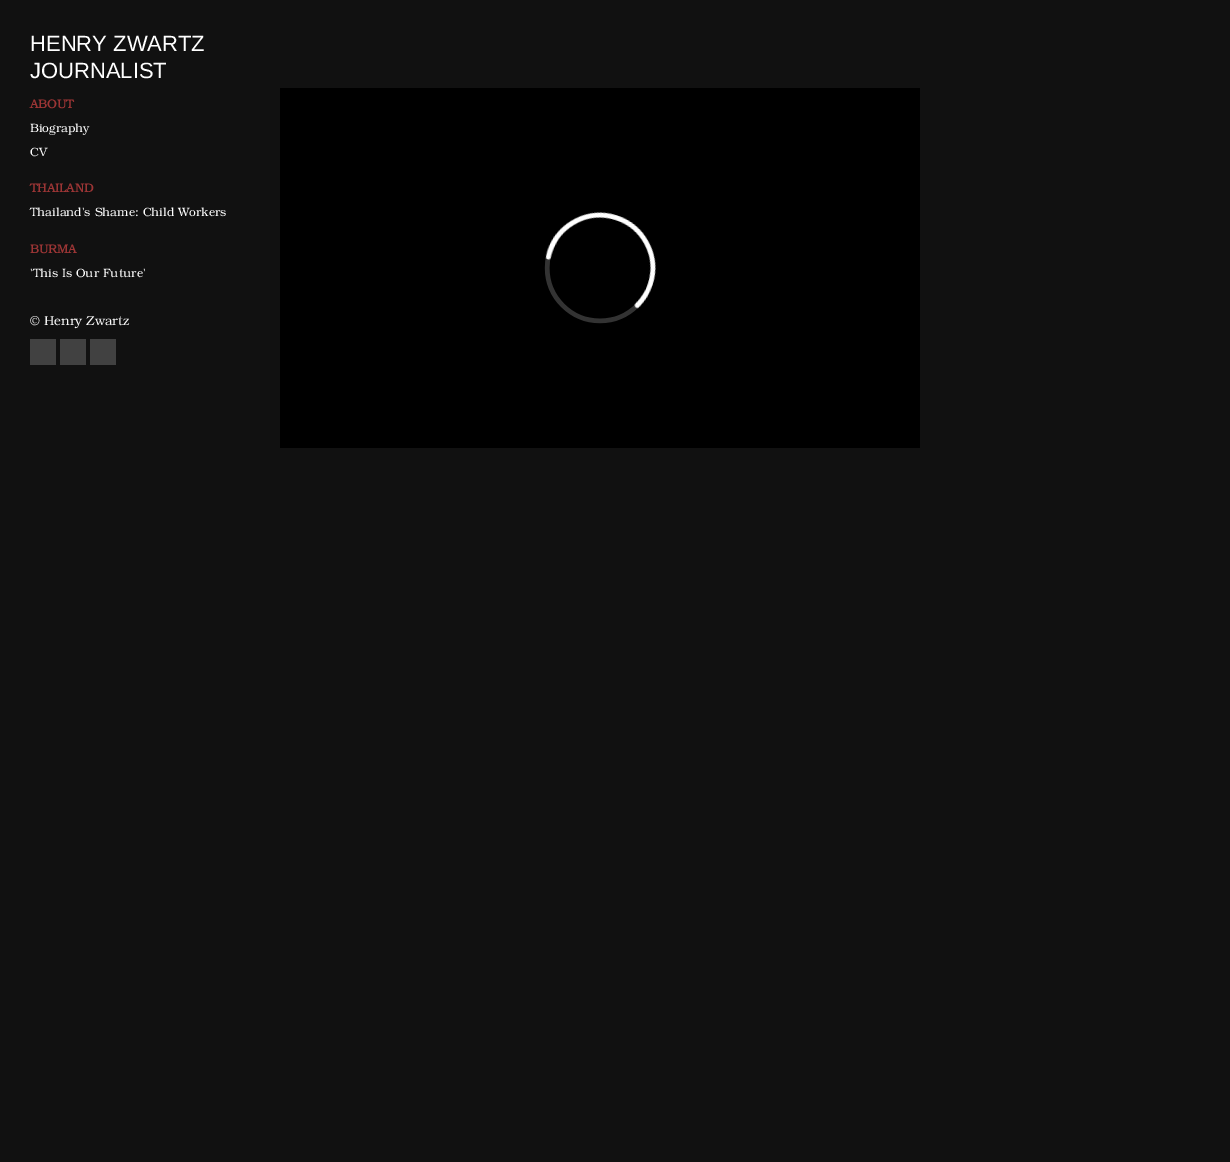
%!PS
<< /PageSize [1230 1162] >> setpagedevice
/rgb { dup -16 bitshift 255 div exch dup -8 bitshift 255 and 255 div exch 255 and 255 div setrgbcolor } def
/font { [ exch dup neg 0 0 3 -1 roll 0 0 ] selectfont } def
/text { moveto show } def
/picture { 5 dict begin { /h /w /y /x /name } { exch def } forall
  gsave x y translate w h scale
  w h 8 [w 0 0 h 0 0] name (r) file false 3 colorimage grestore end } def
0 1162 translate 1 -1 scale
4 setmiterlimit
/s1 { /LiberationSans-Regular 22 font 16#FFFFFF rgb } def
/s2 { /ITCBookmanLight-Bold 12 font 16#9C3535 rgb } def
/s3 { /ITCBookmanLight-Light 12 font 16#FFFFFF rgb } def
/s4 { /ITCBookmanLight-Light 13 font 16#F8F8F8 rgb } def
16#111111 rgb
0 0 1230 1162 rectfill
s1
(HENRY ZWARTZ) 30 51 text
(JOURNALIST) 30 78 text
s2
(ABOUT) 30 108 text
s3
(Biography) 30 132 text
(CV) 30 156 text
s2
(THAILAND) 30 192 text
s3
(Thailand's Shame: Child Workers) 30 216 text
s2
(BURMA) 30 253 text
s3
('This Is Our Future') 30 277 text
s4
(© Henry Zwartz) 30 325 text
16#414141 rgb
30 339 26 26 rectfill
60 339 26 26 rectfill
90 339 26 26 rectfill
(pic1.raw) 280 88 640 360 picture
showpage
